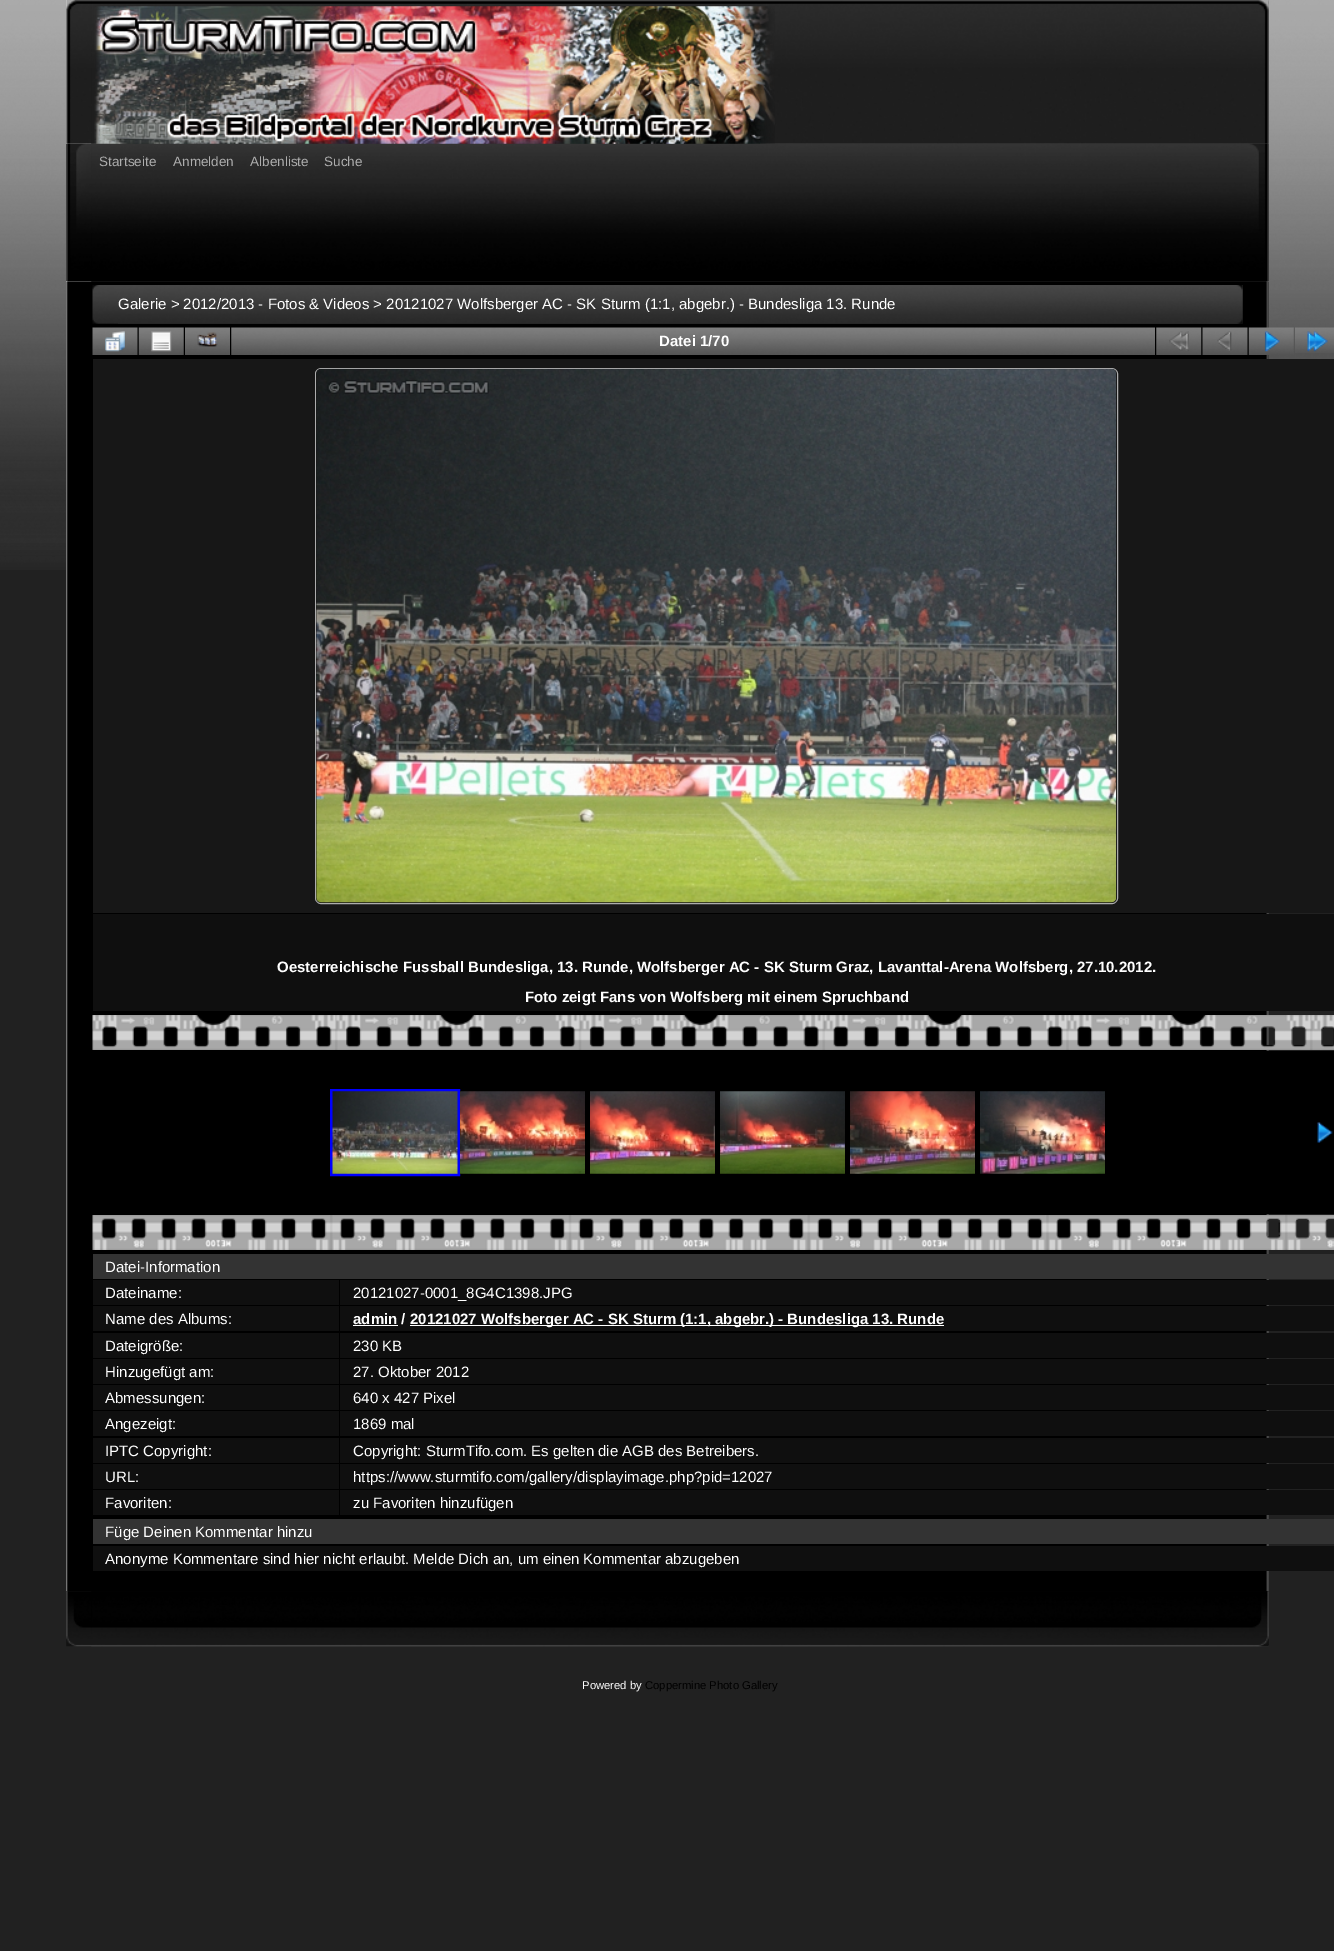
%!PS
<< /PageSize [1334 1951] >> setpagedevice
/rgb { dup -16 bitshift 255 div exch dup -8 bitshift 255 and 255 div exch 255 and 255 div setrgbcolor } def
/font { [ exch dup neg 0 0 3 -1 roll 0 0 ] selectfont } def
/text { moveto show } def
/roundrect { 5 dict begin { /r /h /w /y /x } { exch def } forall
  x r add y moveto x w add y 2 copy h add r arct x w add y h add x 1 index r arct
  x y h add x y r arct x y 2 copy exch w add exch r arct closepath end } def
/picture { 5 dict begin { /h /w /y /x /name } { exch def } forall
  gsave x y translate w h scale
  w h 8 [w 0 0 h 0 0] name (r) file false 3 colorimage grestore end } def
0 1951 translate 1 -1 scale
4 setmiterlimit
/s1 { /LiberationSans-Regular 13.5 font 16#ADADAD rgb } def
/s2 { /LiberationSans-Regular 15 font 16#FFFFFF rgb } def
/s3 { /LiberationSans-Bold 15 font 16#FFFFFF rgb } def
/s4 { /LiberationSans-Regular 11.25 font 16#FFFFFF rgb } def
/s5 { /LiberationSans-Regular 11.25 font 16#000000 rgb } def
16#212121 rgb
0 0 1334 1951 rectfill
(pic1.raw) 0 0 1334 570 picture
16#FEFEFE rgb
66 0 1203 144 rectfill
(pic2.raw) 66 0 1203 144 picture
(pic3.raw) 91 0 1178 144 picture
(pic5.raw) 66 143 1203 138 picture
(pic6.raw) 91 143 1178 138 picture
(pic4.raw) 94 6 681 138 picture
s1
(Startseite) 99 166 text
(Anmelden) 173 166 text
(Albenliste) 250 166 text
(Suche) 324 166 text
16#FFFFFF rgb
66 281 1203 1310 rectfill
(pic7.raw) 66 281 1203 1311 picture
(pic8.raw) 91 281 1178 1311 picture
(pic9.raw) 92 285 1151 39 picture
(pic10.raw) 118 285 1125 39 picture
s2
(Galerie > 2012/2013 - Fotos & Videos > 20121027 Wolfsberger AC - SK Sturm \(1:1, abgebr.\) - Bundesliga 13. Runde) 118 309 text
(pic11.raw) 92 327 46 28 picture
(pic12.raw) 105 331 20 21 picture
(pic13.raw) 138 327 46 28 picture
(pic14.raw) 151 331 21 21 picture
(pic15.raw) 185 327 45 28 picture
(pic16.raw) 197 332 21 15 picture
(pic17.raw) 231 327 924 28 picture
s3
(Datei 1/70) 659 346 text
(pic18.raw) 1156 327 46 28 picture
(pic19.raw) 1169 331 20 20 picture
(pic11.raw) 1202 327 46 28 picture
(pic20.raw) 1217 331 15 20 picture
(pic21.raw) 1248 327 46 28 picture
(pic22.raw) 1264 331 16 21 picture
(pic23.raw) 1295 327 39 26 picture
(pic24.raw) 1307 331 21 21 picture
16#171717 rgb
93 359 1241 554 rectfill
16#ADADAD rgb
315.5 368.5 802 535 5.5 roundrect stroke
(pic25.raw) 316 368 801 535 picture
16#0F0F0F rgb
93 914 1241 97 rectfill
s3
(Oesterreichische Fussball Bundesliga, 13. Runde, Wolfsberger AC - SK Sturm Graz, Lavanttal-Arena Wolfsberg, 27.10.2012.) 277 972 text
(Foto zeigt Fans von Wolfsberg mit einem Spruchband) 525 1002 text
(pic26.raw) 92 1015 1242 35 picture
16#000000 rgb
1266 1051 68 163 rectfill
16#0000FF rgb
3 setlinewidth
331.5 1090.5 127 84 rectstroke
(pic27.raw) 332 1091 126 83 picture
(pic28.raw) 460 1091 125 83 picture
(pic29.raw) 590 1091 125 83 picture
(pic30.raw) 720 1091 125 83 picture
(pic31.raw) 850 1091 125 83 picture
(pic32.raw) 980 1091 125 83 picture
(pic33.raw) 1317 1122 16 21 picture
(pic34.raw) 92 1215 1242 35 picture
16#333333 rgb
93 1254 1241 25 rectfill
s2
(Datei-Information) 105 1272 text
16#0F0F0F rgb
93 1280 246 25 rectfill
s2
(Dateiname:) 105 1298 text
16#0F0F0F rgb
340 1280 994 25 rectfill
s2
(20121027-0001_8G4C1398.JPG) 353 1298 text
16#0F0F0F rgb
93 1306 246 25 rectfill
s2
(Name des Albums:) 105 1324 text
16#0F0F0F rgb
340 1306 994 25 rectfill
s3
(admin /) 353 1324 text
353 1325 45 1 rectfill
410 1325 534 1 rectfill
(20121027 Wolfsberger AC - SK Sturm \(1:1, abgebr.\) - Bundesliga 13. Runde) 410 1324 text
16#0F0F0F rgb
93 1333 246 25 rectfill
s2
(Dateigröße:) 105 1351 text
16#0F0F0F rgb
340 1333 994 25 rectfill
s2
(230 KB) 353 1351 text
16#0F0F0F rgb
93 1359 246 25 rectfill
s2
(Hinzugefügt am:) 105 1377 text
16#0F0F0F rgb
340 1359 994 25 rectfill
s2
(27. Oktober 2012) 353 1377 text
16#0F0F0F rgb
93 1385 246 25 rectfill
s2
(Abmessungen:) 105 1403 text
16#0F0F0F rgb
340 1385 994 25 rectfill
s2
(640 x 427 Pixel) 353 1403 text
16#0F0F0F rgb
93 1411 246 25 rectfill
s2
(Angezeigt:) 105 1429 text
16#0F0F0F rgb
340 1411 994 25 rectfill
s2
(1869 mal) 353 1429 text
16#0F0F0F rgb
93 1438 246 25 rectfill
s2
(IPTC Copyright:) 105 1456 text
16#0F0F0F rgb
340 1438 994 25 rectfill
s2
(Copyright: SturmTifo.com. Es gelten die AGB des Betreibers.) 353 1456 text
16#0F0F0F rgb
93 1464 246 25 rectfill
s2
(URL:) 105 1482 text
16#0F0F0F rgb
340 1464 994 25 rectfill
s2
(https://www.sturmtifo.com/gallery/displayimage.php?pid=12027) 353 1482 text
16#0F0F0F rgb
93 1490 246 25 rectfill
s2
(Favoriten:) 105 1508 text
16#0F0F0F rgb
340 1490 994 25 rectfill
s2
(zu Favoriten hinzufügen) 353 1508 text
16#333333 rgb
93 1519 1241 25 rectfill
s2
(Füge Deinen Kommentar hinzu) 105 1537 text
16#0F0F0F rgb
93 1546 1241 25 rectfill
s2
(Anonyme Kommentare sind hier nicht erlaubt. Melde Dich an, um einen Kommentar abzugeben) 105 1564 text
(pic35.raw) 66 1591 1203 56 picture
(pic36.raw) 91 1591 1178 56 picture
s4
(Powered by) 582 1689 text
s5
(Coppermine Photo Gallery) 645 1689 text
showpage
